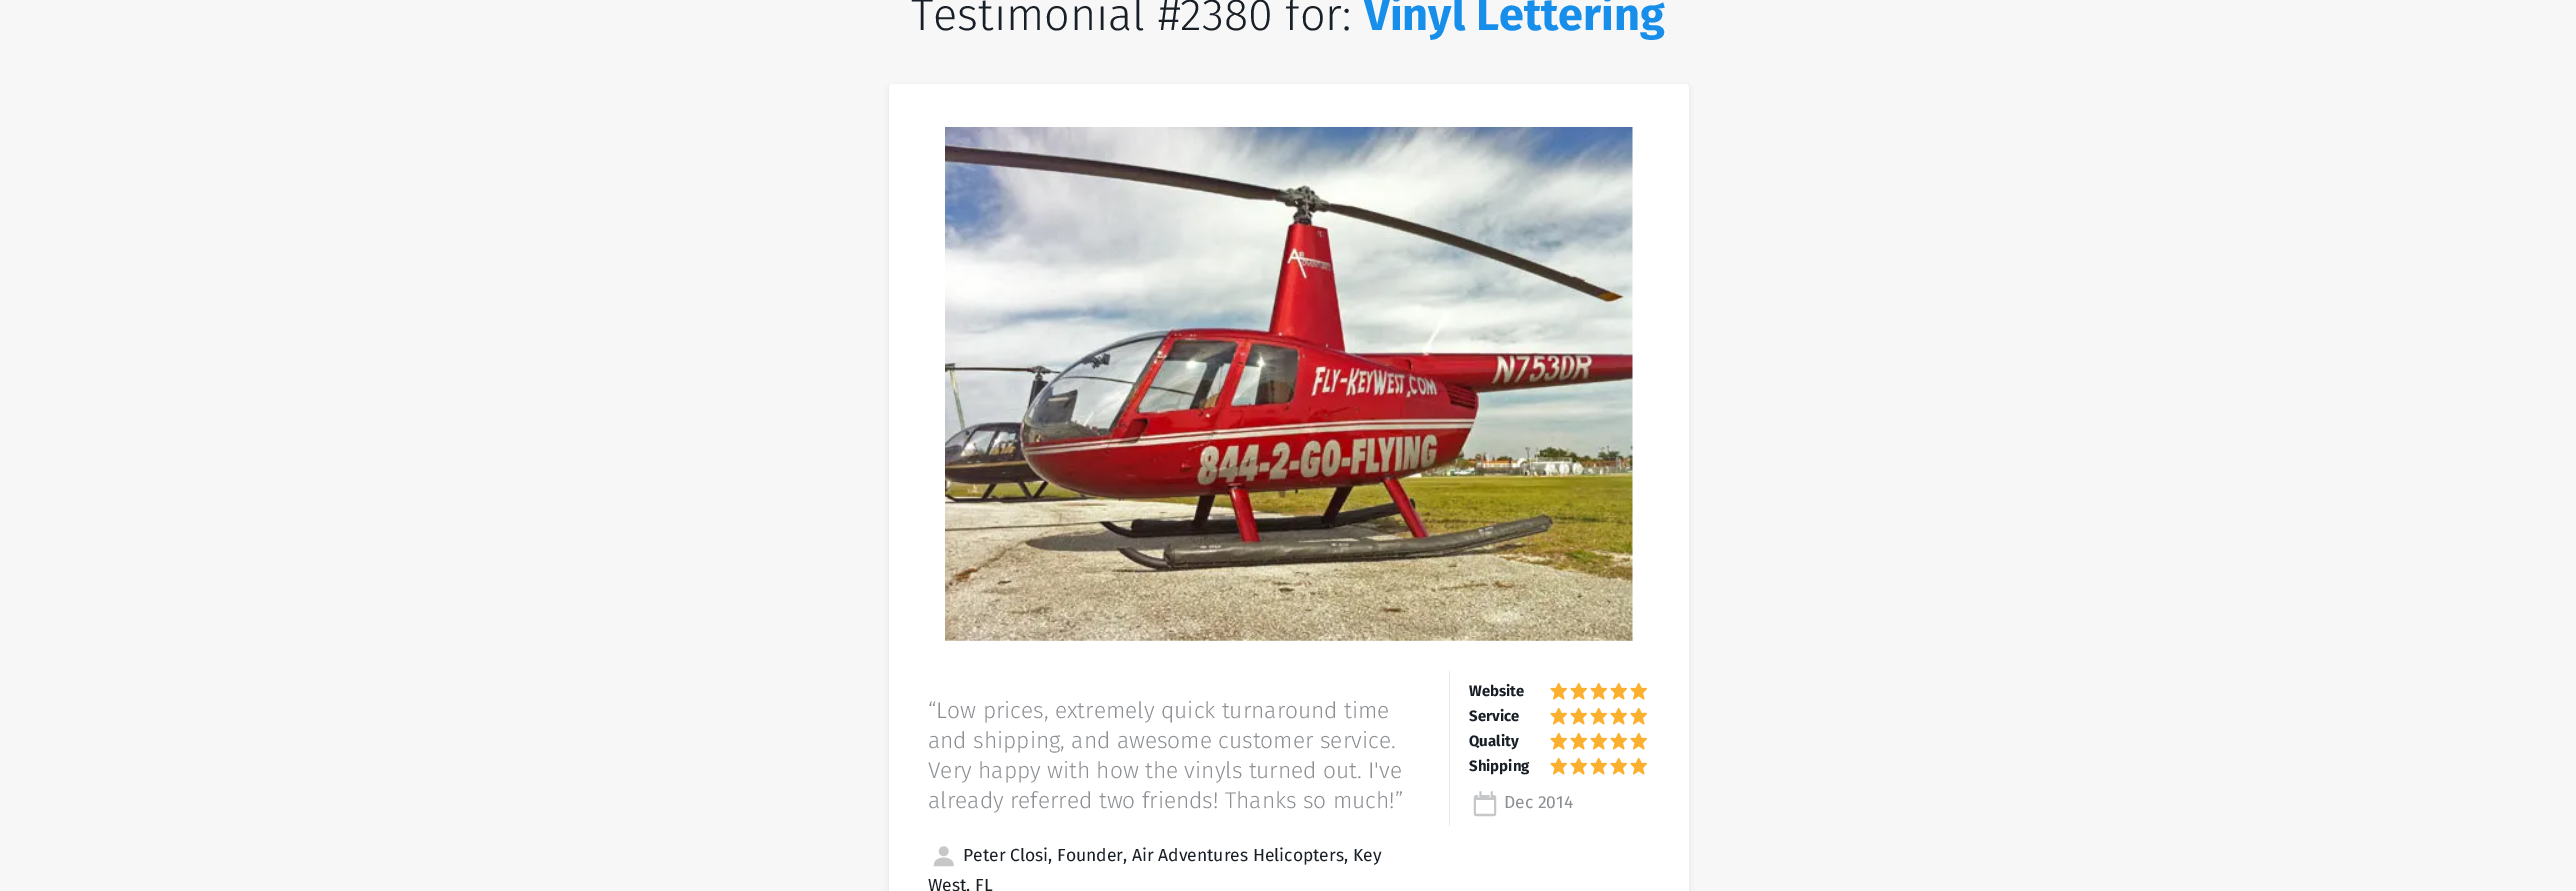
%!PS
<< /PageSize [2576 891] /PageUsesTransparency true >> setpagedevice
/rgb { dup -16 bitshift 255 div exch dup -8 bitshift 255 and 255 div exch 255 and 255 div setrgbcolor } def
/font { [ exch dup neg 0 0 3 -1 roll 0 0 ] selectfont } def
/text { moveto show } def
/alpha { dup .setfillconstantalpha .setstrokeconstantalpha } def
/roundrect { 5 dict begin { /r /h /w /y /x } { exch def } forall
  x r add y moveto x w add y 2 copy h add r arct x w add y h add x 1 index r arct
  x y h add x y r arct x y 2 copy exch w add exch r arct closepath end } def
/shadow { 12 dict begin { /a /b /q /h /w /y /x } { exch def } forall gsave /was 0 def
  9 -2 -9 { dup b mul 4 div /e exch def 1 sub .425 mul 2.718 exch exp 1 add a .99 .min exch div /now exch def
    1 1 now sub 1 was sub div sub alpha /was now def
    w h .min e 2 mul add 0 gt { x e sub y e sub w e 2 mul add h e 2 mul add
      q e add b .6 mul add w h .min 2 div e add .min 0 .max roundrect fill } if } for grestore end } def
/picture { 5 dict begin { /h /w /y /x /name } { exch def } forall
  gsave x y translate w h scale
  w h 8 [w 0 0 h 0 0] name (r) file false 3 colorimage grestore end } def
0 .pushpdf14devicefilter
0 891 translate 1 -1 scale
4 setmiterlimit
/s1 { /FiraSans-Light 45 font 16#191F26 rgb } def
/s2 { /FiraSans-Bold 45 font 16#168EEA rgb } def
/s3 { /FiraSans-Light 22.75 font 16#8C8F93 rgb } def
/s4 { /FiraSans-Regular 17.5 font 16#191F26 rgb } def
/s5 { /FiraSans-Bold 15 font 16#191F26 rgb } def
/s6 { /FiraSans-Regular 17.5 font 16#8C8F93 rgb } def
16#F7F7F8 rgb
0 0 2576 891 rectfill
s1
(Testimonial #2380 for:) 911 30 text
s2
(Vinyl Lettering) 1364 30 text
16#191F26 rgb
889 86 800 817 4 2.5 0.1 shadow
16#FFFFFF rgb
889 84 800 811 4 roundrect fill
(pic1.raw) 945 127 688 514 picture
s3
(“Low prices, extremely quick turnaround time) 928 718 text
(and shipping, and awesome customer service.) 928 748 text
(Very happy with how the vinyls turned out. I've) 928 778 text
(already referred two friends! Thanks so much!”) 928 808 text
(pic2.raw) 933 846 21 21 picture
s4
(Peter Closi, Founder, Air Adventures Helicopters, Key) 963 861 text
(West, FL) 928 891 text
16#E8E9E9 rgb
1449 671 1 155 rectfill
s5
(Website) 1469 696 text
(pic3.raw) 1550 682 18 18 picture
(pic3.raw) 1570 682 18 18 picture
(pic3.raw) 1590 682 18 18 picture
(pic3.raw) 1610 682 18 18 picture
(pic3.raw) 1630 682 18 18 picture
(Service) 1469 721 text
(pic3.raw) 1550 707 18 18 picture
(pic3.raw) 1570 707 18 18 picture
(pic3.raw) 1590 707 18 18 picture
(pic3.raw) 1610 707 18 18 picture
(pic3.raw) 1630 707 18 18 picture
(Quality) 1469 746 text
(pic3.raw) 1550 732 18 18 picture
(pic3.raw) 1570 732 18 18 picture
(pic3.raw) 1590 732 18 18 picture
(pic3.raw) 1610 732 18 18 picture
(pic3.raw) 1630 732 18 18 picture
(Shipping) 1469 771 text
(pic3.raw) 1550 757 18 18 picture
(pic3.raw) 1570 757 18 18 picture
(pic3.raw) 1590 757 18 18 picture
(pic3.raw) 1610 757 18 18 picture
(pic3.raw) 1630 757 18 18 picture
(pic4.raw) 1473 791 24 26 picture
s6
(Dec 2014) 1504 808 text
.poppdf14devicefilter showpage
